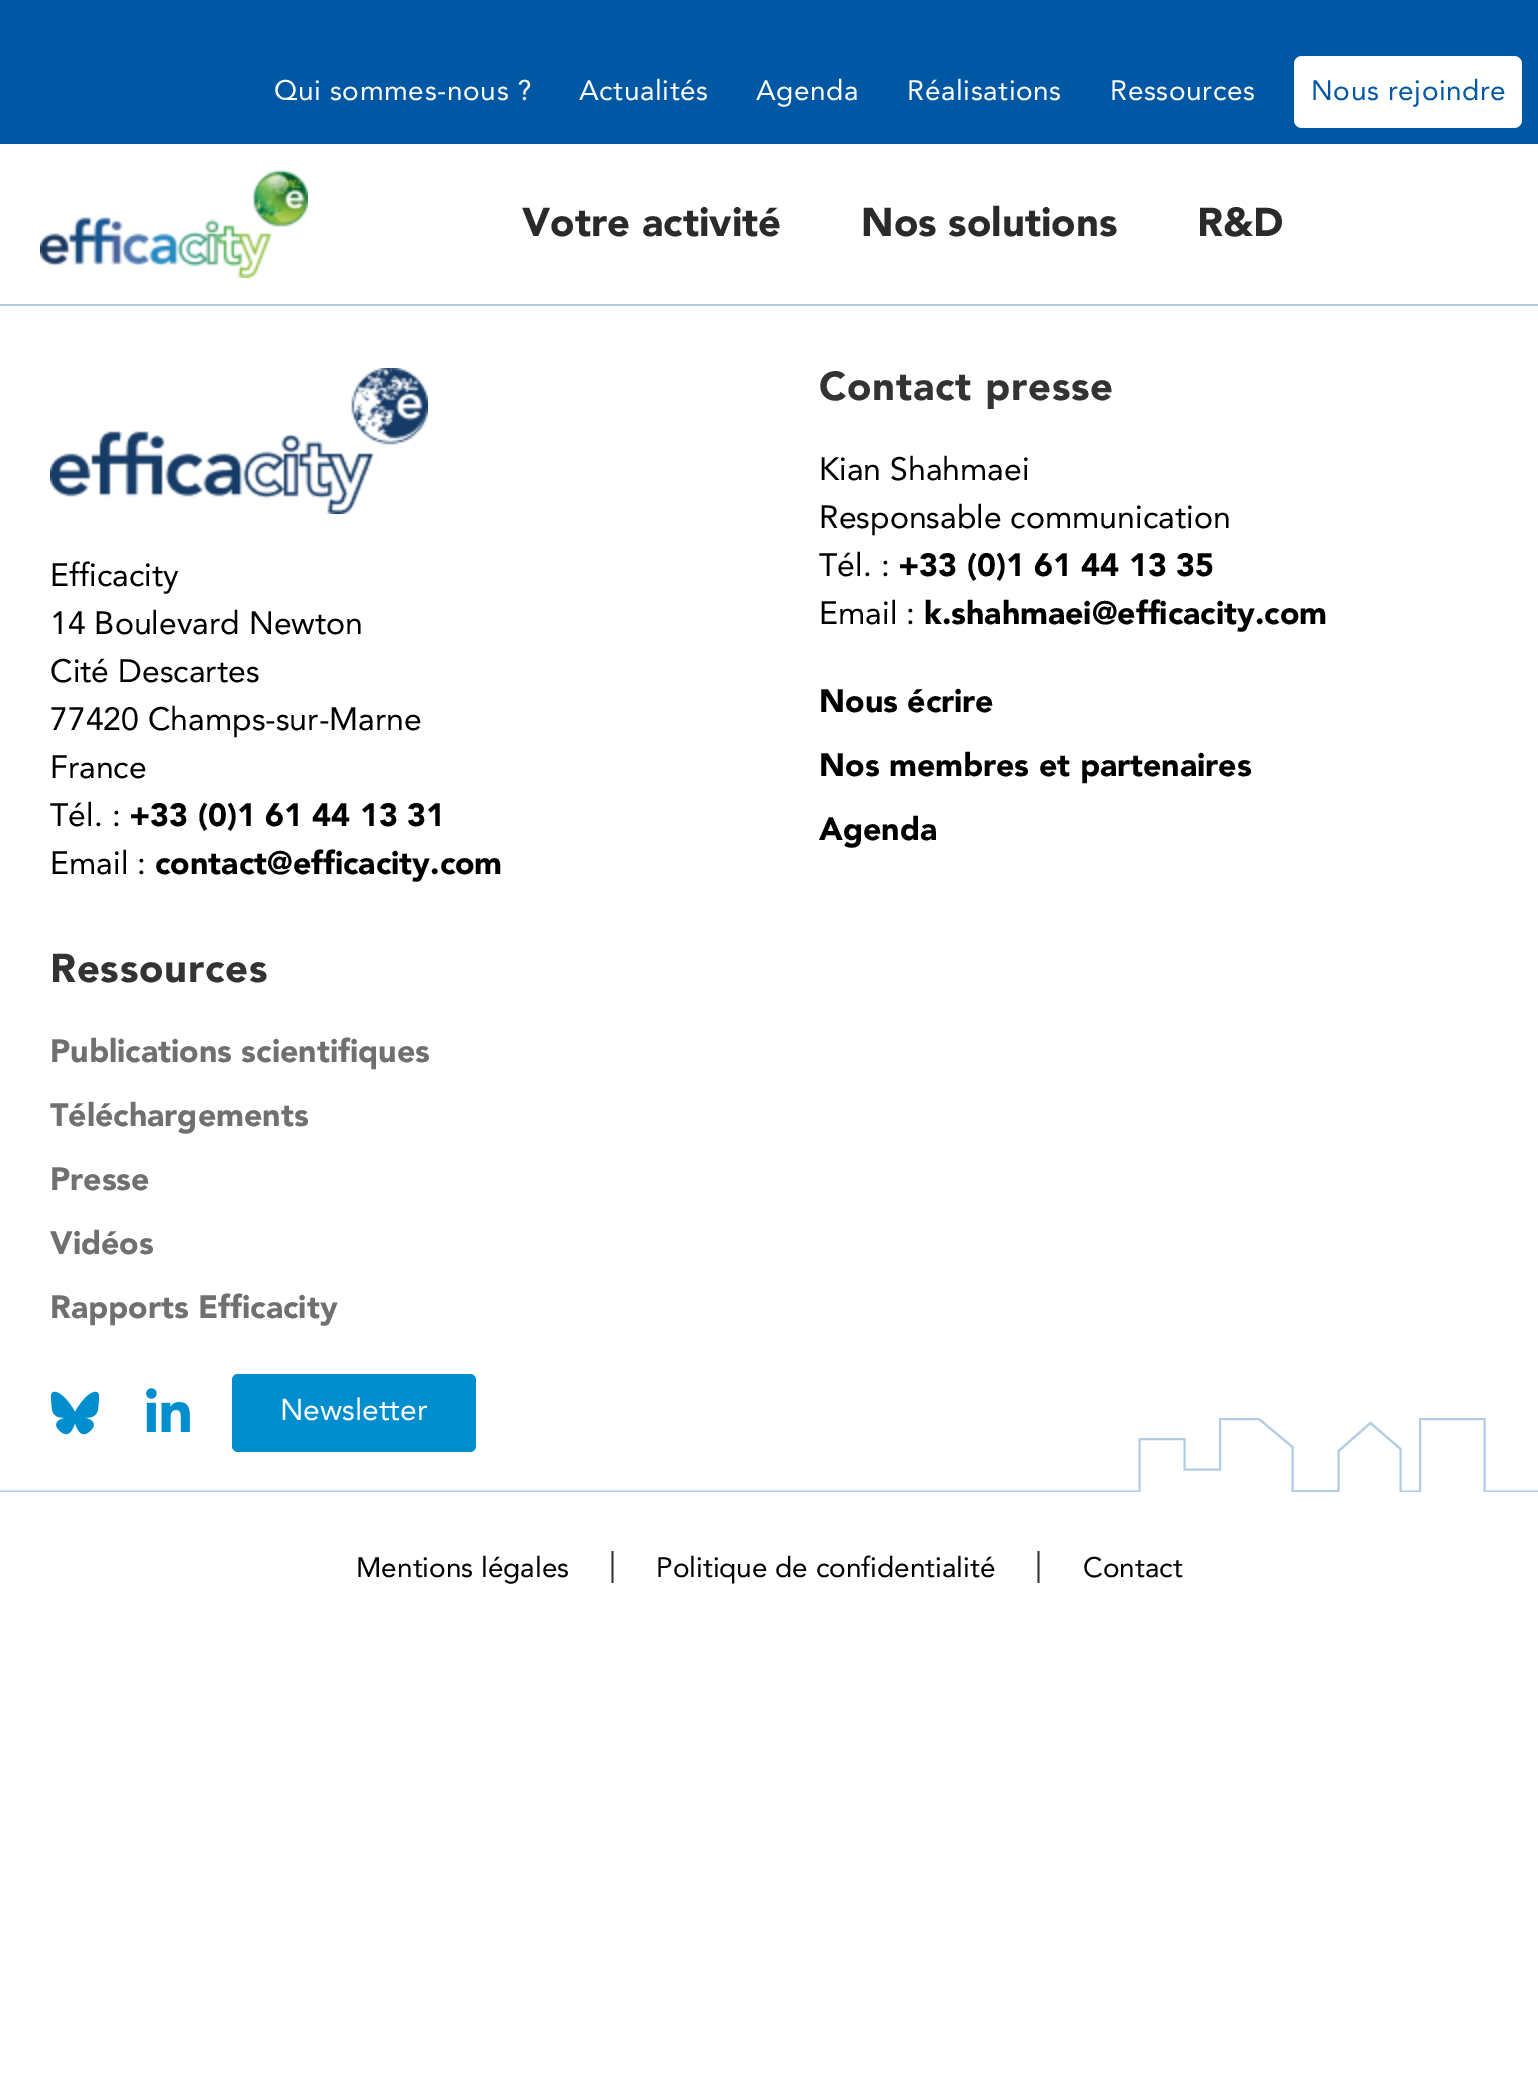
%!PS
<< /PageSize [1538 2076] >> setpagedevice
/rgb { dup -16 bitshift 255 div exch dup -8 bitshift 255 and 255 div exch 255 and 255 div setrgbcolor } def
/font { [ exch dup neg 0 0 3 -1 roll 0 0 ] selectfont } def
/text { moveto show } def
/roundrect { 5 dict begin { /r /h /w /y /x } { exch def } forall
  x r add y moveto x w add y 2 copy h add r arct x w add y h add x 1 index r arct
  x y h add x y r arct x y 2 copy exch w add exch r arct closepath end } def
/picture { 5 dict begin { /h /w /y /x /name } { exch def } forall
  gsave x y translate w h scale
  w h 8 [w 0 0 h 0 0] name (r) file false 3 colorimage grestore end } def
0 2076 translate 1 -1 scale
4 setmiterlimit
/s1 { /Avenir-Black 40 font 16#2A2A2A rgb } def
/s2 { /Avenir-Regular 32 font 16#000000 rgb } def
/s3 { /Avenir-Black 32 font 16#000000 rgb } def
/s4 { /Avenir-Black 32 font 16#707070 rgb } def
/s5 { /Avenir-Regular 30 font 16#FFFFFF rgb } def
/s6 { /Avenir-Regular 28 font 16#000000 rgb } def
/s7 { /Avenir-Regular 32 font 16#333333 rgb } def
16#FFFFFF rgb
0 0 1538 2076 rectfill
16#0058A5 rgb
0 0 1538 144 rectfill
/Avenir-Regular 28 font
16#FFFFFF rgb
274 100 moveto 0.6 0 (Qui sommes-nous ?) ashow
579 100 moveto 0.6 0 (Actualités) ashow
756 100 moveto 0.6 0 (Agenda) ashow
907 100 moveto 0.6 0 (Réalisations) ashow
1110 100 moveto 0.6 0 (Ressources) ashow
1294 56 228 72 8 roundrect fill
16#0058A5 rgb
1311 100 moveto 0.6 0 (Nous rejoindre) ashow
(pic1.raw) 40 170 268 108 picture
s1
(Votre activité) 522 236 text
(Nos solutions) 861 236 text
(R&D) 1197 236 text
16#B3CDE4 rgb
0 304 1538 2 rectfill
(pic2.raw) 50 368 378 146 picture
s2
(Efficacity) 50 586 text
(14 Boulevard Newton) 50 634 text
(Cité Descartes) 50 682 text
(77420 Champs-sur-Marne) 50 730 text
(France) 50 778 text
(Tél. :) 50 826 text
s3
(+33 \(0\)1 61 44 13 31) 129 826 text
s2
(Email :) 50 874 text
s3
(contact@efficacity.com) 155 874 text
/Avenir-Black 40 font
16#333333 rgb
819 400 moveto 0.75 0 (Contact presse) ashow
s2
(Kian Shahmaei) 819 480 text
(Responsable communication) 819 528 text
(Tél. :) 819 576 text
s3
(+33 \(0\)1 61 44 13 35) 898 576 text
s2
(Email :) 819 624 text
s3
(k.shahmaei@efficacity.com) 924 624 text
(Nous écrire) 819 712 text
(Nos membres et partenaires) 819 776 text
(Agenda) 819 840 text
/Avenir-Black 40 font
16#333333 rgb
50 982 moveto 0.75 0 (Ressources) ashow
s4
(Publications scientifiques) 50 1062 text
(Téléchargements) 50 1126 text
(Presse) 50 1190 text
(Vidéos) 50 1254 text
(Rapports Efficacity) 50 1318 text
gsave
0 1418 1538 74 rectclip
16#B3CDE4 rgb
2.1 setlinewidth
1538 1491.5 moveto 1484.5 1491.5 lineto 1484.5 1419 lineto 1420 1419 lineto 1420 1491.5 lineto 1400.5 1491.5 lineto 1400.5 1449 lineto 1370.5 1423 lineto 1338.5 1451 lineto 1338.5 1491 lineto 1292.5 1491 lineto 1292.5 1447 lineto 1259 1419 lineto 1220 1419 lineto 1220 1469.5 lineto 1184.5 1469.5 lineto 1184.5 1439 lineto 1139.5 1439 lineto 1139.5 1491.5 lineto 0 1491.5 lineto stroke
grestore
(pic3.raw) 50 1391 50 44 picture
(pic4.raw) 146 1388 44 44 picture
16#008ECF rgb
232 1374 244 78 6 roundrect fill
s5
(Newsletter) 280 1420 text
s6
(Mentions légales) 356 1577 text
s7
(|) 609 1575 text
s6
(Politique de confidentialité) 656 1577 text
s7
(|) 1035 1575 text
s6
(Contact) 1083 1577 text
showpage
